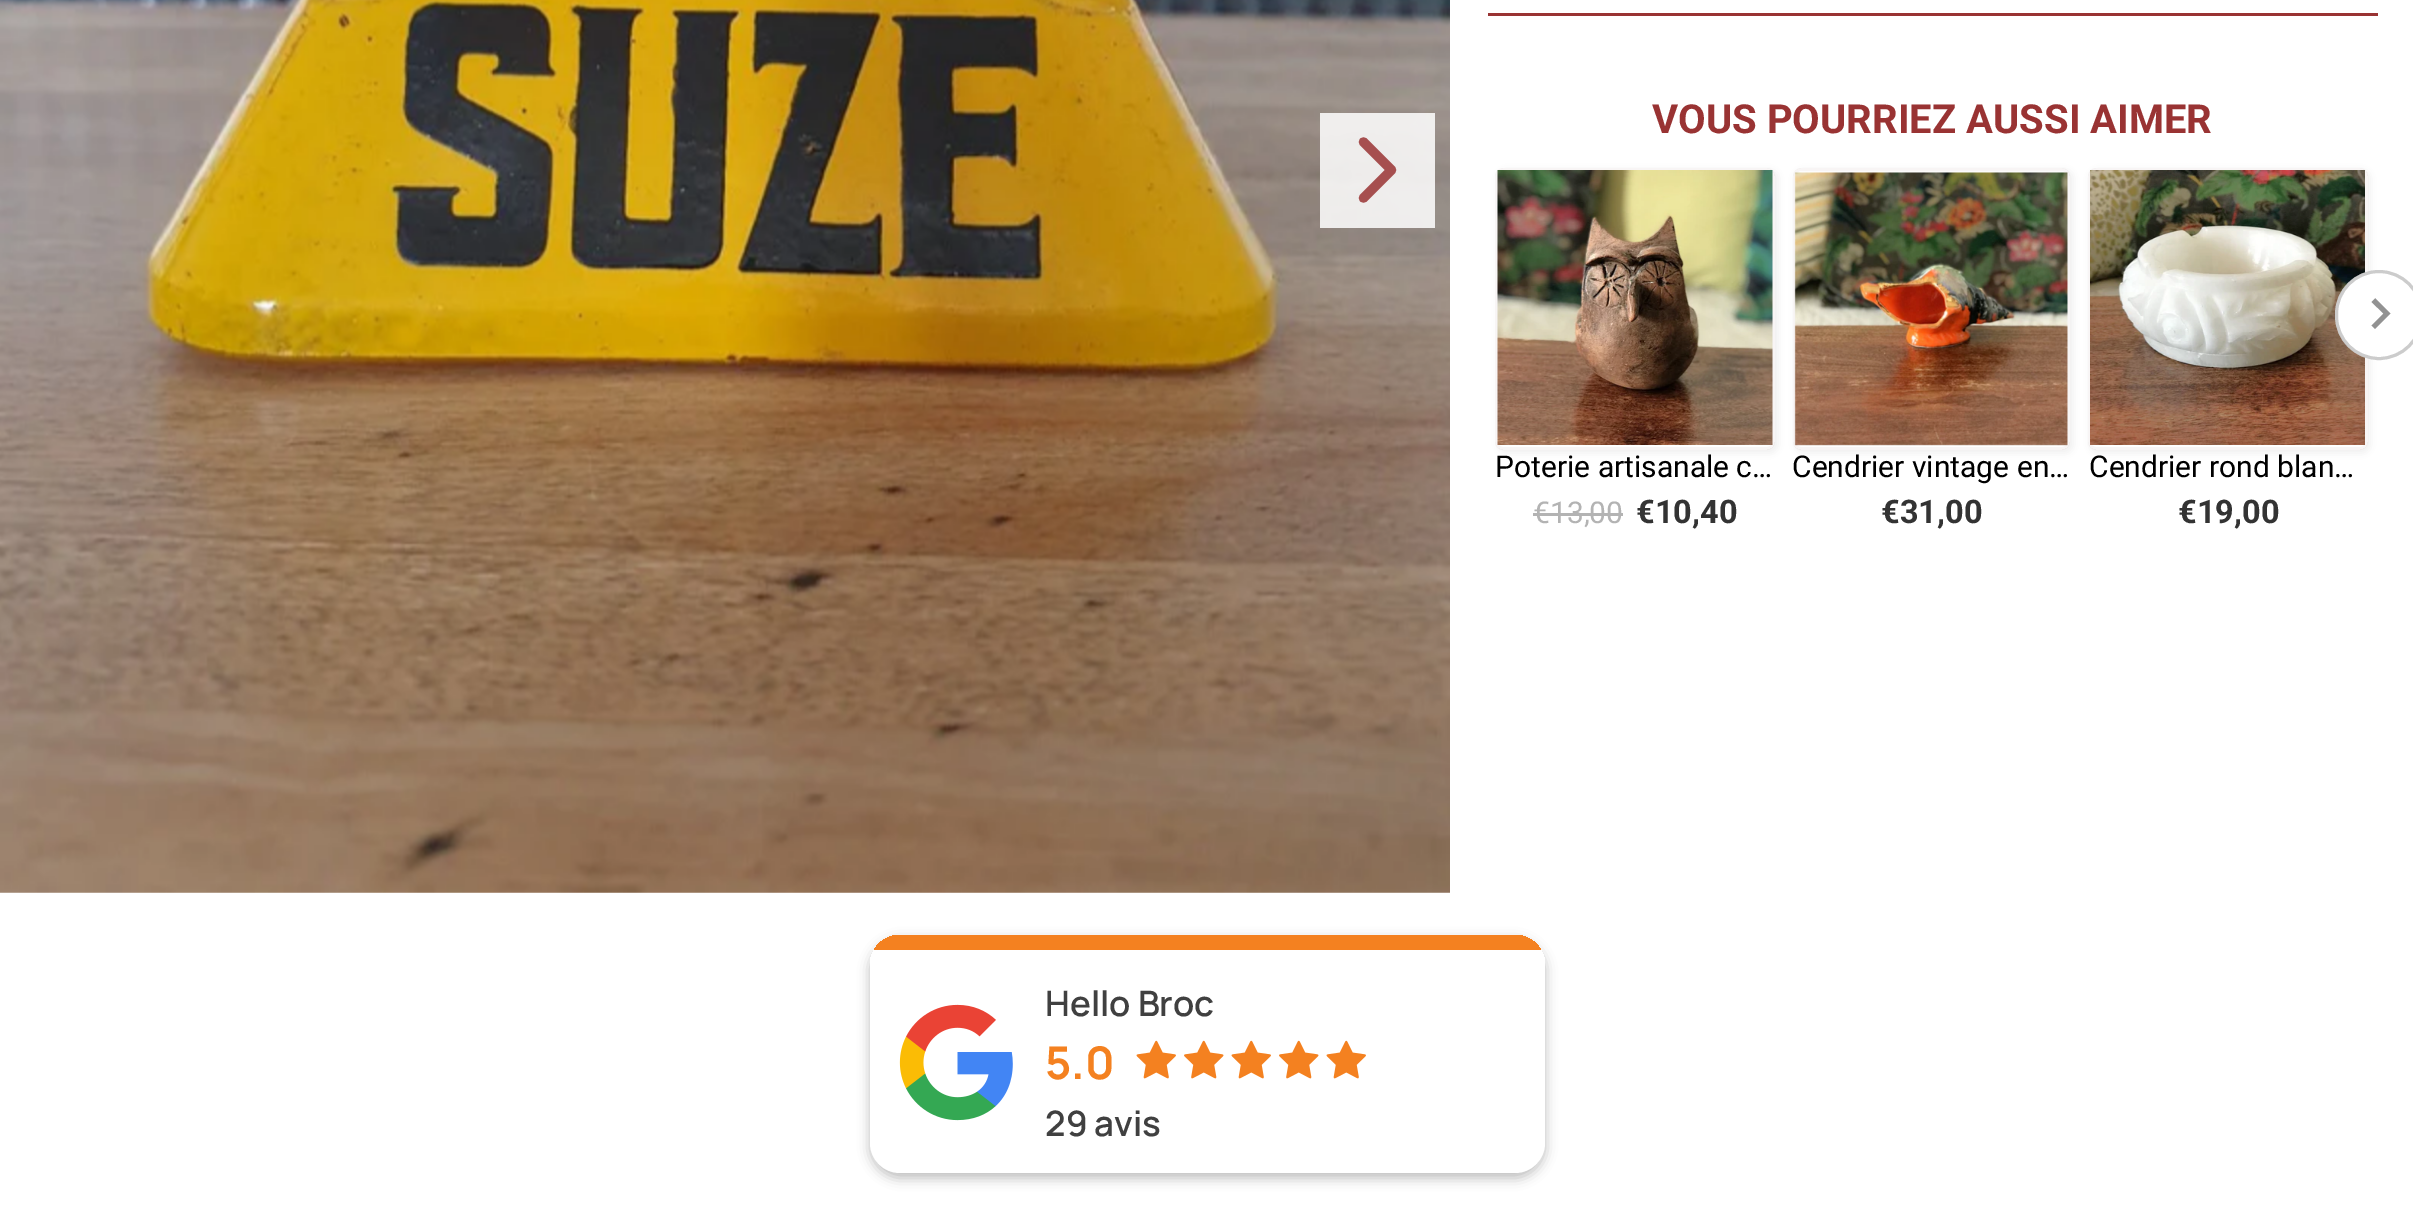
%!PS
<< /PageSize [2413 1230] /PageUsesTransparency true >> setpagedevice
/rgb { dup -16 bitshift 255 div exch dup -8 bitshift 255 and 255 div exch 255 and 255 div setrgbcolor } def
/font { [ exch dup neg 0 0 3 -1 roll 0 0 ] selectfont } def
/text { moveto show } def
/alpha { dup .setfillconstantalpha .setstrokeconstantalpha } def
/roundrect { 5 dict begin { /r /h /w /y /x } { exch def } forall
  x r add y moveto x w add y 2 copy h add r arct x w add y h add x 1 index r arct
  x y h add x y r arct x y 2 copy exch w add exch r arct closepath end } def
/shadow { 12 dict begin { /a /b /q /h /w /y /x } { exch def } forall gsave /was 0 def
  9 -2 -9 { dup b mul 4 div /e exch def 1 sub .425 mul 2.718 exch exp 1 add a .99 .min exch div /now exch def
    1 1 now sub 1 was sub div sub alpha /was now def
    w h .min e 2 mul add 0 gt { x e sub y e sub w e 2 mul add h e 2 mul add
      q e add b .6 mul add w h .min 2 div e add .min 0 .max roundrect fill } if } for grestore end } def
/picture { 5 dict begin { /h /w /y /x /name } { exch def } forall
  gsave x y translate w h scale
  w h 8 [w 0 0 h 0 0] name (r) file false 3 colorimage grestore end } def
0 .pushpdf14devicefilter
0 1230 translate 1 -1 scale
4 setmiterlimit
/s1 { /Roboto-Bold 40 font 16#993333 rgb } def
/s2 { /Roboto-Regular 30 font 16#000000 rgb } def
/s3 { /Roboto-Regular 30 font 16#B3B3B3 rgb } def
/s4 { /Roboto-Bold 32.5 font 16#333333 rgb } def
/s5 { /Manrope-SemiBold 35 font 16#404040 rgb } def
/s6 { /Manrope-Bold 45 font 16#F48120 rgb } def
16#FFFFFF rgb
0 0 2413 1230 rectfill
(pic1.raw) 0 892 1450 1 picture
(pic2.raw) 0 0 1450 893 picture
0.85 alpha
1320 113 115 115 rectfill
1 alpha
16#A64F4F rgb
9.4 setlinewidth
1 setlinecap
1 setlinejoin
1363.5 142 moveto 1391.5 170 lineto 1363.5 198 lineto stroke
16#993333 rgb
1488 13 890 3 rectfill
s1
(VOUS POURRIEZ AUSSI AIMER) 1652 133 text
gsave
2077 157 moveto 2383 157 lineto 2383 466 lineto 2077 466 lineto closepath 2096 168 moveto 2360 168 lineto 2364.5 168 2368 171.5 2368 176 curveto 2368 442 lineto 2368 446.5 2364.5 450 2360 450 curveto 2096 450 lineto 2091.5 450 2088 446.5 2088 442 curveto 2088 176 lineto 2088 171.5 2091.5 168 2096 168 curveto closepath eoclip newpath
16#929292 rgb
2090 170 280 283 8 4 0.15 shadow
grestore
0.3 alpha
16#E7DEDE rgb
3 setlinewidth
0 setlinecap
0 setlinejoin
2089.5 169.5 277 279 6.5 roundrect stroke
1 alpha
(pic5.raw) 2090 170 275 275 picture
16#FFFFFF rgb
2336.5 271.5 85 87 42.5 roundrect gsave fill grestore
16#CCCCCC rgb
stroke
16#929292 rgb
2375 298.5 moveto 2371.5 302 lineto 2383.5 313.5 lineto 2371.5 325.5 lineto 2375 329 lineto 2390.5 313.5 lineto 2375 298 lineto closepath fill
gsave
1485 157 moveto 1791 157 lineto 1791 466 lineto 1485 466 lineto closepath 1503 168 moveto 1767 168 lineto 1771.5 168 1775 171.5 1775 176 curveto 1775 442 lineto 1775 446.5 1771.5 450 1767 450 curveto 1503 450 lineto 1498.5 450 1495 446.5 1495 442 curveto 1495 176 lineto 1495 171.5 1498.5 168 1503 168 curveto closepath eoclip newpath
1498 170 280 283 8 4 0.15 shadow
grestore
0.3 alpha
16#E7DEDE rgb
1496.5 169.5 277 279 6.5 roundrect stroke
1 alpha
(pic3.raw) 1497 170 276 275 picture
s2
(Poterie artisanale c…) 1495 477 text
s3
(€13,00) 1533 523 text
1533 513 90 3 rectfill
s4
(€10,40) 1636 523 text
gsave
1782 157 moveto 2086 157 lineto 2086 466 lineto 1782 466 lineto closepath 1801 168 moveto 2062 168 lineto 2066.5 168 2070 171.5 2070 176 curveto 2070 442 lineto 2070 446.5 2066.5 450 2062 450 curveto 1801 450 lineto 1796.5 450 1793 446.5 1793 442 curveto 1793 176 lineto 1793 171.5 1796.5 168 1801 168 curveto closepath eoclip newpath
16#929292 rgb
1795 170 278 283 8 4 0.15 shadow
grestore
0.3 alpha
16#E7DEDE rgb
1794.5 169.5 274 279 6.5 roundrect stroke
1 alpha
(pic4.raw) 1794 172 274 274 picture
s2
(Cendrier vintage en…) 1792 477 text
s4
(€31,00) 1881 523 text
s2
(Cendrier rond blan…) 2089 477 text
s4
(€19,00) 2178 523 text
16#000000 rgb
870 940 675 238 30 6 0.26 shadow
gsave
870 935 675 238 30 roundrect clip newpath
16#F48120 rgb
874 935 667 15 rectfill
16#FFFFFF rgb
870 950 moveto 1545 950 lineto 1545 1143 lineto 1545 1159.5 1531.5 1173 1515 1173 curveto 900 1173 lineto 883.5 1173 870 1159.5 870 1143 curveto closepath fill
grestore
(pic6.raw) 899 1004 114 117 picture
s5
(Hello Broc) 1045 1016 text
s6
(5.0) 1045 1079 text
(pic7.raw) 1136 1040 40 39 picture
(pic8.raw) 1184 1040 40 39 picture
(pic7.raw) 1231 1040 40 39 picture
(pic8.raw) 1279 1040 40 39 picture
(pic7.raw) 1326 1040 40 39 picture
s5
(29 avis) 1045 1136 text
.poppdf14devicefilter showpage
